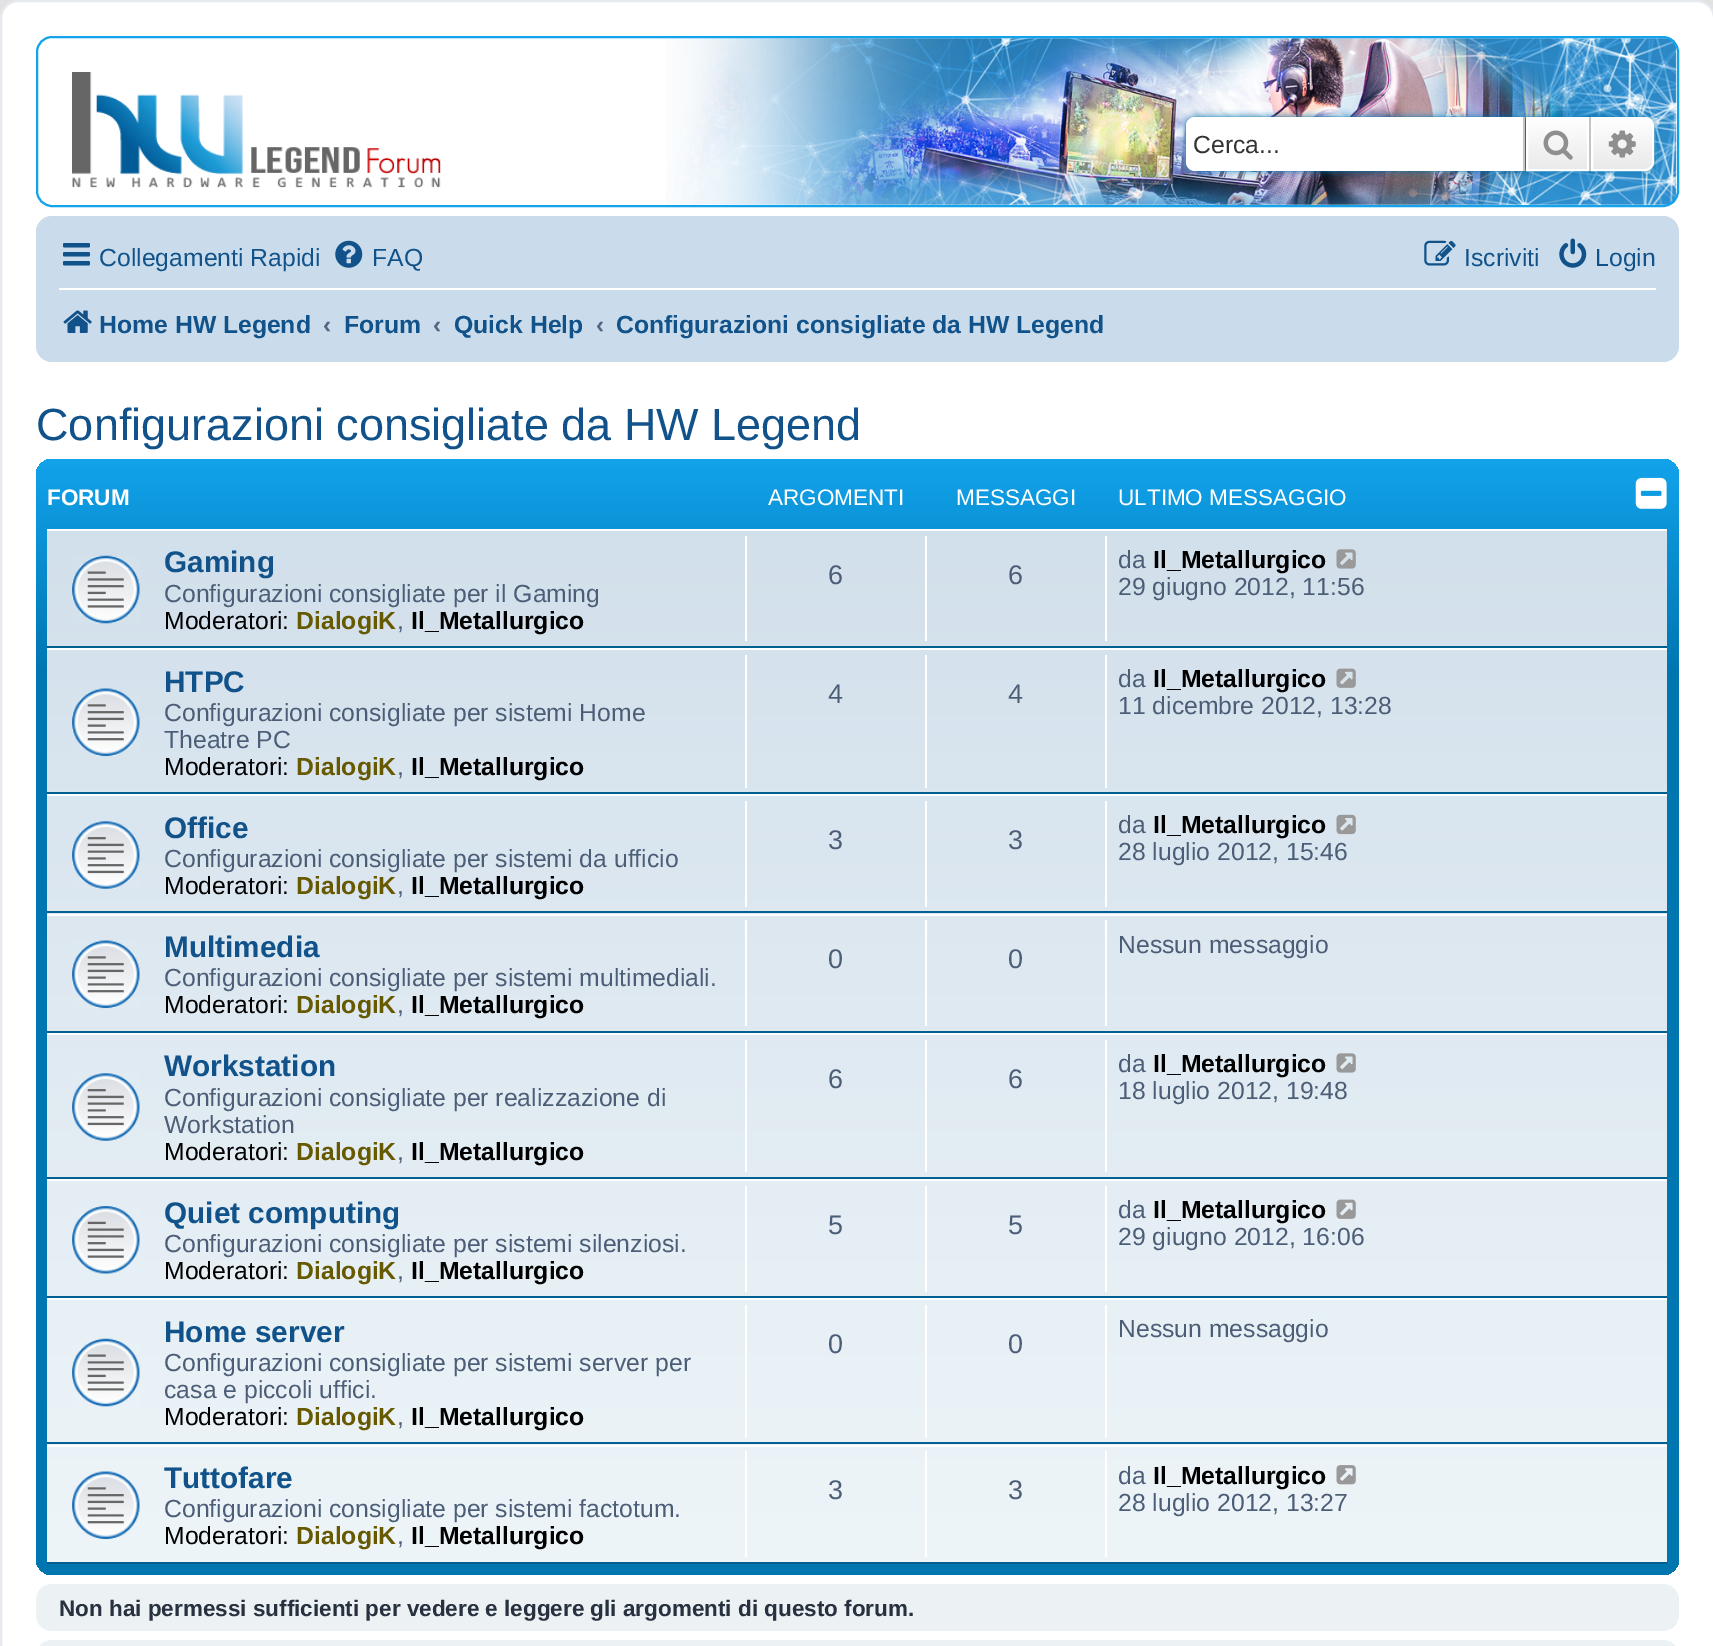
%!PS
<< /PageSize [1713 1646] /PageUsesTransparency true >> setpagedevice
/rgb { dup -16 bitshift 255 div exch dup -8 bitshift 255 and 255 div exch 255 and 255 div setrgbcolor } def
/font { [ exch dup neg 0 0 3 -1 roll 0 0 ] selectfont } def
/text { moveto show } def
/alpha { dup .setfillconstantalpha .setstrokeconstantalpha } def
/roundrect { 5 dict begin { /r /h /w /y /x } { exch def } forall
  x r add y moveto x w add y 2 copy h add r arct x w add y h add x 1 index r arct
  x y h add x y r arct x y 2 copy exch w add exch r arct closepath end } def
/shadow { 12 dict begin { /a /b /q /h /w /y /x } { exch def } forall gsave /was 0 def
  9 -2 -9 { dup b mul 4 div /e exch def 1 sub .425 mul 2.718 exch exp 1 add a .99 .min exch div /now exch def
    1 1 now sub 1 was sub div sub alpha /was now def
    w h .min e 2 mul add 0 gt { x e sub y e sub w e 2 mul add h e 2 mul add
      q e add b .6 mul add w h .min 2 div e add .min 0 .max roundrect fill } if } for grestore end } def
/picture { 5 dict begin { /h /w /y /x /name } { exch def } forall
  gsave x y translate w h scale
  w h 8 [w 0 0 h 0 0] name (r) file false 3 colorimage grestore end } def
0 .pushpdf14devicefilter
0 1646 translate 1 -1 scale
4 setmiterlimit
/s1 { /LiberationSans-Regular 24.75 font 16#333333 rgb } def
/s2 { /LiberationSans-Regular 24.75 font 16#105289 rgb } def
/s3 { /LiberationSans-Bold 24.75 font 16#105289 rgb } def
/s4 { /LiberationSans-Bold 24.75 font 16#536482 rgb } def
/s5 { /LiberationSans-Regular 45 font 16#105289 rgb } def
/s6 { /LiberationSans-Bold 22.5 font 16#FFFFFF rgb } def
/s7 { /LiberationSans-Regular 22.5 font 16#FFFFFF rgb } def
/s8 { /LiberationSans-Bold 29.75 font 16#105289 rgb } def
/s9 { /LiberationSans-Regular 24.75 font 16#4C5D77 rgb } def
/s10 { /LiberationSans-Regular 24.75 font 16#000000 rgb } def
/s11 { /LiberationSans-Bold 24.75 font 16#665900 rgb } def
/s12 { /LiberationSans-Bold 24.75 font 16#000000 rgb } def
/s13 { /LiberationSans-Regular 27 font 16#4C5D77 rgb } def
/s14 { /LiberationSans-Bold 22.5 font 16#28313F rgb } def
16#E2E2E2 rgb
0 0 1713 1646 rectfill
16#FFFFFF rgb
1 1 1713 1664 17 roundrect gsave fill grestore
16#E6E9ED rgb
2 setlinewidth
stroke
(pic1.raw) 666 38 1011 167 picture
16#12A3EB rgb
37 37 1641 169 15 roundrect stroke
(pic2.raw) 72 72 369 116 picture
16#0075B0 rgb
1186 117 468 54 9 3.5 1 shadow
16#FFFFFF rgb
1195 117 moveto 1523 117 lineto 1523 171 lineto 1195 171 lineto 1190 171 1186 167 1186 162 curveto 1186 126 lineto 1186 121 1190 117 1195 117 curveto closepath fill
s1
(Cerca...) 1193 153 text
gsave 1528 119 moveto 1587 119 lineto 1587 169 lineto 1528 169 lineto closepath clip newpath
<< /ShadingType 2 /ColorSpace /DeviceRGB /Coords [1557 117 1557 171] /Extend [true true] /Function << /FunctionType 2 /Domain [0 1] /C0 [1 1 1] /C1 [0.914 0.914 0.914] /N 1 >> >> shfill grestore
16#FFFFFF rgb
1527 118 61 52 rectstroke
16#C7C3BF rgb
1589 117 2 54 rectfill
1523 117 2 54 rectfill
(pic3.raw) 1543 130 30 30 picture
gsave 1592 118 moveto 1645 118 lineto 1649.5 118 1653 121.5 1653 126 curveto 1653 162 lineto 1653 166.5 1649.5 170 1645 170 curveto 1592 170 lineto closepath clip newpath
<< /ShadingType 2 /ColorSpace /DeviceRGB /Coords [1622 117 1622 171] /Extend [true true] /Function << /FunctionType 2 /Domain [0 1] /C0 [1 1 1] /C1 [0.914 0.914 0.914] /N 1 >> >> shfill grestore
16#FFFFFF rgb
1592 118 moveto 1645 118 lineto 1649.5 118 1653 121.5 1653 126 curveto 1653 162 lineto 1653 166.5 1649.5 170 1645 170 curveto 1592 170 lineto closepath stroke
(pic4.raw) 1608 130 28 28 picture
16#CADCEB rgb
36 216 1643 146 16 roundrect fill
(pic5.raw) 63 243 27 23 picture
s2
(Collegamenti Rapidi) 99 266 text
(pic6.raw) 335 240 28 28 picture
(FAQ) 372 266 text
(pic7.raw) 1424 240 32 26 picture
(Iscriviti) 1464 266 text
(pic8.raw) 1559 238 28 30 picture
(Login) 1595 266 text
16#FFFFFF rgb
59 288 1597 2 rectfill
(pic9.raw) 63 310 29 23 picture
s3
(Home HW Legend) 99 333 text
s4
(‹) 323 333 text
s3
(Forum) 344 333 text
s4
(‹) 433 333 text
gsave
455 297 128 54 rectclip
s3
(Quick Help) 454 333 text
grestore
(‹) 596 333 text
s3
(Configurazioni consigliate da HW Legend) 616 333 text
s5
(Configurazioni consigliate da HW Legend) 36 440 text
gsave 36 459 1643 1116 16 roundrect clip newpath
<< /ShadingType 2 /ColorSpace /DeviceRGB /Coords [857 459 857 1575] /Extend [true true] /Function << /FunctionType 3 /Domain [0 1] /Functions [<< /FunctionType 2 /Domain [0 1] /C0 [0.071 0.639 0.922] /C1 [0 0.463 0.694] /N 1 >> << /FunctionType 2 /Domain [0 1] /C0 [0 0.463 0.694] /C1 [0 0.463 0.694] /N 1 >>] /Bounds [0.19] /Encode [0 1 0 1] >> >> shfill grestore
s6
(FORUM) 47 505 text
s7
(ARGOMENTI) 768 505 text
(MESSAGGI) 956 505 text
(ULTIMO MESSAGGIO) 1118 505 text
(pic10.raw) 1635 477 32 32 picture
gsave 47 531 moveto 1667 531 lineto 1667 1562 lineto 47 1562 lineto closepath clip newpath
<< /ShadingType 2 /ColorSpace /DeviceRGB /Coords [857 529 857 1564] /Extend [true true] /Function << /FunctionType 2 /Domain [0 1] /C0 [0.824 0.878 0.922] /C1 [0.933 0.961 0.976] /N 1 >> >> shfill grestore
47 529 1620 2 rectfill
16#00608F rgb
47 646 1620 2 rectfill
(pic11.raw) 72 555 68 69 picture
s8
(Gaming) 164 572 text
s9
(Configurazioni consigliate per il Gaming) 164 602 text
s10
(Moderatori:) 164 629 text
s11
(DialogiK) 296 629 text
s9
(,) 397 629 text
s12
(Il_Metallurgico) 411 629 text
16#FFFFFF rgb
745 536 2 105 rectfill
s13
(6) 828 584 text
16#FFFFFF rgb
925 536 2 105 rectfill
s13
(6) 1008 584 text
16#FFFFFF rgb
1105 536 2 105 rectfill
s9
(da) 1118 568 text
s12
(Il_Metallurgico) 1153 568 text
(pic12.raw) 1336 549 20 20 picture
s9
(29 giugno 2012, 11:56) 1118 595 text
16#FFFFFF rgb
47 648 1620 2 rectfill
16#00608F rgb
47 792 1620 2 rectfill
(pic13.raw) 72 688 68 69 picture
s8
(HTPC) 164 692 text
s9
(Configurazioni consigliate per sistemi Home) 164 721 text
(Theatre PC) 164 748 text
s10
(Moderatori:) 164 775 text
s11
(DialogiK) 296 775 text
s9
(,) 397 775 text
s12
(Il_Metallurgico) 411 775 text
16#FFFFFF rgb
745 655 2 133 rectfill
s13
(4) 828 703 text
16#FFFFFF rgb
925 655 2 133 rectfill
s13
(4) 1008 703 text
16#FFFFFF rgb
1105 655 2 133 rectfill
s9
(da) 1118 687 text
s12
(Il_Metallurgico) 1153 687 text
(pic14.raw) 1336 668 20 20 picture
s9
(11 dicembre 2012, 13:28) 1118 714 text
16#FFFFFF rgb
47 794 1620 2 rectfill
16#00608F rgb
47 911 1620 2 rectfill
(pic15.raw) 72 821 68 68 picture
s8
(Office) 164 838 text
s9
(Configurazioni consigliate per sistemi da ufficio) 164 867 text
s10
(Moderatori:) 164 894 text
s11
(DialogiK) 296 894 text
s9
(,) 397 894 text
s12
(Il_Metallurgico) 411 894 text
16#FFFFFF rgb
745 801 2 106 rectfill
s13
(3) 828 849 text
16#FFFFFF rgb
925 801 2 106 rectfill
s13
(3) 1008 849 text
16#FFFFFF rgb
1105 801 2 106 rectfill
s9
(da) 1118 833 text
s12
(Il_Metallurgico) 1153 833 text
(pic16.raw) 1336 814 20 21 picture
s9
(28 luglio 2012, 15:46) 1118 860 text
16#FFFFFF rgb
47 914 1620 2 rectfill
16#00608F rgb
47 1031 1620 2 rectfill
(pic17.raw) 72 940 68 69 picture
s8
(Multimedia) 164 957 text
s9
(Configurazioni consigliate per sistemi multimediali.) 164 986 text
s10
(Moderatori:) 164 1013 text
s11
(DialogiK) 296 1013 text
s9
(,) 397 1013 text
s12
(Il_Metallurgico) 411 1013 text
16#FFFFFF rgb
745 920 2 106 rectfill
s13
(0) 828 968 text
16#FFFFFF rgb
925 920 2 106 rectfill
s13
(0) 1008 968 text
16#FFFFFF rgb
1105 920 2 106 rectfill
s9
(Nessun messaggio) 1118 953 text
16#FFFFFF rgb
47 1033 1620 2 rectfill
16#00608F rgb
47 1177 1620 2 rectfill
(pic18.raw) 72 1073 68 68 picture
s8
(Workstation) 164 1076 text
s9
(Configurazioni consigliate per realizzazione di) 164 1106 text
(Workstation) 164 1133 text
s10
(Moderatori:) 164 1160 text
s11
(DialogiK) 296 1160 text
s9
(,) 397 1160 text
s12
(Il_Metallurgico) 411 1160 text
16#FFFFFF rgb
745 1040 2 132 rectfill
s13
(6) 828 1088 text
16#FFFFFF rgb
925 1040 2 132 rectfill
s13
(6) 1008 1088 text
16#FFFFFF rgb
1105 1040 2 132 rectfill
s9
(da) 1118 1072 text
s12
(Il_Metallurgico) 1153 1072 text
(pic19.raw) 1336 1053 20 20 picture
s9
(18 luglio 2012, 19:48) 1118 1099 text
16#FFFFFF rgb
47 1179 1620 2 rectfill
16#00608F rgb
47 1296 1620 2 rectfill
(pic20.raw) 72 1206 68 68 picture
s8
(Quiet computing) 164 1223 text
s9
(Configurazioni consigliate per sistemi silenziosi.) 164 1252 text
s10
(Moderatori:) 164 1279 text
s11
(DialogiK) 296 1279 text
s9
(,) 397 1279 text
s12
(Il_Metallurgico) 411 1279 text
16#FFFFFF rgb
745 1186 2 106 rectfill
s13
(5) 828 1234 text
16#FFFFFF rgb
925 1186 2 106 rectfill
s13
(5) 1008 1234 text
16#FFFFFF rgb
1105 1186 2 106 rectfill
s9
(da) 1118 1218 text
s12
(Il_Metallurgico) 1153 1218 text
(pic21.raw) 1336 1199 20 20 picture
s9
(29 giugno 2012, 16:06) 1118 1245 text
16#FFFFFF rgb
47 1298 1620 2 rectfill
16#00608F rgb
47 1442 1620 2 rectfill
(pic22.raw) 72 1338 68 69 picture
s8
(Home server) 164 1342 text
s9
(Configurazioni consigliate per sistemi server per) 164 1371 text
(casa e piccoli uffici.) 164 1398 text
s10
(Moderatori:) 164 1425 text
s11
(DialogiK) 296 1425 text
s9
(,) 397 1425 text
s12
(Il_Metallurgico) 411 1425 text
16#FFFFFF rgb
745 1305 2 133 rectfill
s13
(0) 828 1353 text
16#FFFFFF rgb
925 1305 2 133 rectfill
s13
(0) 1008 1353 text
16#FFFFFF rgb
1105 1305 2 133 rectfill
s9
(Nessun messaggio) 1118 1337 text
16#FFFFFF rgb
47 1445 1620 2 rectfill
16#00608F rgb
47 1562 1620 2 rectfill
(pic23.raw) 72 1471 68 69 picture
s8
(Tuttofare) 164 1488 text
s9
(Configurazioni consigliate per sistemi factotum.) 164 1517 text
s10
(Moderatori:) 164 1544 text
s11
(DialogiK) 296 1544 text
s9
(,) 397 1544 text
s12
(Il_Metallurgico) 411 1544 text
16#FFFFFF rgb
745 1451 2 106 rectfill
s13
(3) 828 1499 text
16#FFFFFF rgb
925 1451 2 106 rectfill
s13
(3) 1008 1499 text
16#FFFFFF rgb
1105 1451 2 106 rectfill
s9
(da) 1118 1484 text
s12
(Il_Metallurgico) 1153 1484 text
(pic24.raw) 1336 1465 20 20 picture
s9
(28 luglio 2012, 13:27) 1118 1511 text
16#ECF1F3 rgb
36 1584 1643 47 16 roundrect fill
s14
(Non hai permessi sufficienti per vedere e leggere gli argomenti di questo forum.) 59 1616 text
16#ECF1F3 rgb
36 1640 1643 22 16 roundrect fill
.poppdf14devicefilter showpage
